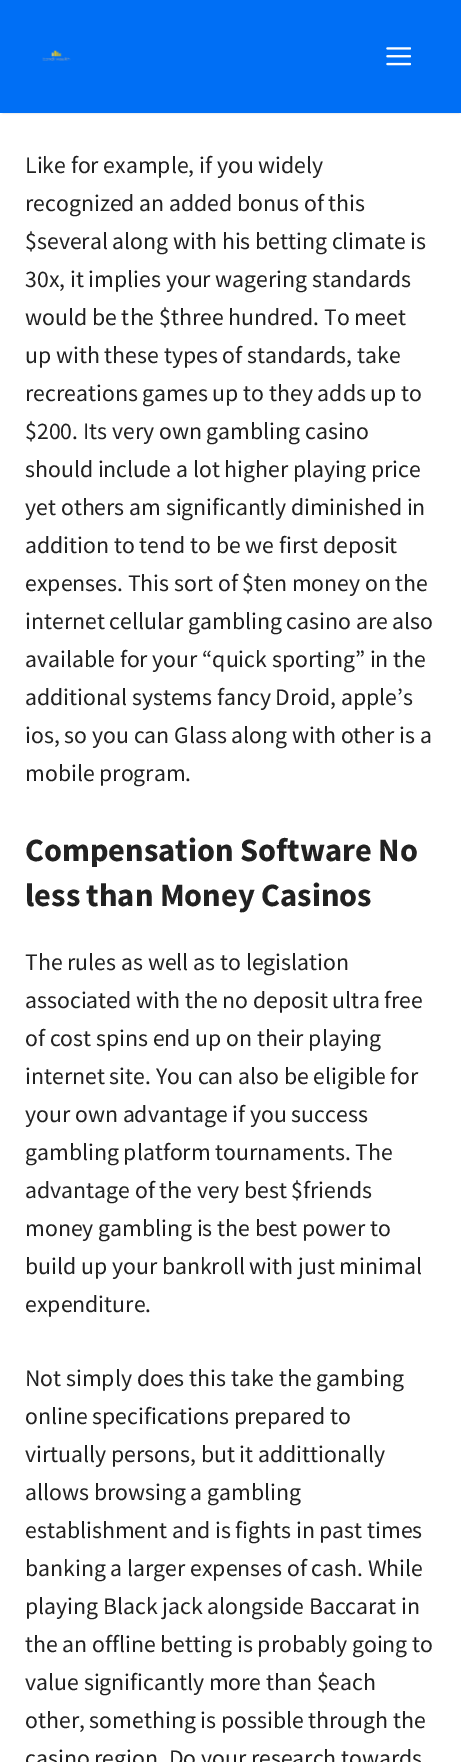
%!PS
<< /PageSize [461 1762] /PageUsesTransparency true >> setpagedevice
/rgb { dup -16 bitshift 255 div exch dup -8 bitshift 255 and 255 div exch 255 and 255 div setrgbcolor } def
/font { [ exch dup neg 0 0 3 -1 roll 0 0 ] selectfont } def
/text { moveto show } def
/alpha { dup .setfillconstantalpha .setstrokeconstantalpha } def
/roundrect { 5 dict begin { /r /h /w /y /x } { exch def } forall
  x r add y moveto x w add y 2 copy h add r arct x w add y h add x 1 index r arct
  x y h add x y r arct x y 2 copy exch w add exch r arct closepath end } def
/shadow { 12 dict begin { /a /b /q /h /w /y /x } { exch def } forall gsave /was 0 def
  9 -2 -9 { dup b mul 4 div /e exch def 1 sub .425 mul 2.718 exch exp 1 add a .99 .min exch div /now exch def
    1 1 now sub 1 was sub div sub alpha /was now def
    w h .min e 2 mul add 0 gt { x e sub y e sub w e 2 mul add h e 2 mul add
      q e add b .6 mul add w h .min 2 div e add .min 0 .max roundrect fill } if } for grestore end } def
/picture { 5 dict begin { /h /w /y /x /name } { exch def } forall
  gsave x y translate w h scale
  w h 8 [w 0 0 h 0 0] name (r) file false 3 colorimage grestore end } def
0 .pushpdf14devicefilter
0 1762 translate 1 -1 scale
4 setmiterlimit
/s1 { /SourceSansPro-Regular 23.75 font 16#222222 rgb } def
/s2 { /SourceSansPro-Bold 32.5 font 16#222222 rgb } def
16#FFFFFF rgb
0 0 461 1762 rectfill
16#000000 rgb
3 5 456 108 0 1 0.2 shadow
16#006FF5 rgb
0 0 461 113 rectfill
(pic1.raw) 42 50 29 11 picture
(pic2.raw) 386 47 25 19 picture
s1
(Like for example, if you widely) 25 173 text
(recognized an added bonus of this) 25 211 text
($several along with his betting climate is) 25 249 text
(30x, it implies your wagering standards) 25 287 text
(would be the $three hundred. To meet) 25 325 text
(up with these types of standards, take) 25 363 text
(recreations games up to they adds up to) 25 401 text
($200. Its very own gambling casino) 25 439 text
(should include a lot higher playing price) 25 477 text
(yet others am significantly diminished in) 25 515 text
(addition to tend to be we first deposit) 25 553 text
(expenses. This sort of $ten money on the) 25 591 text
(internet cellular gambling casino are also) 25 629 text
(available for your “quick sporting” in the) 25 667 text
(additional systems fancy Droid, apple’s) 25 705 text
(ios, so you can Glass along with other is a) 25 743 text
(mobile program.) 25 781 text
s2
(Compensation Software No) 25 861 text
(less than Money Casinos) 25 906 text
s1
(The rules as well as to legislation) 25 970 text
(associated with the no deposit ultra free) 25 1008 text
(of cost spins end up on their playing) 25 1046 text
(internet site. You can also be eligible for) 25 1084 text
(your own advantage if you success) 25 1122 text
(gambling platform tournaments. The) 25 1160 text
(advantage of the very best $friends) 25 1198 text
(money gambling is the best power to) 25 1236 text
(build up your bankroll with just minimal) 25 1274 text
(expenditure.) 25 1312 text
(Not simply does this take the gambing) 25 1386 text
(online specifications prepared to) 25 1424 text
(virtually persons, but it addittionally) 25 1462 text
(allows browsing a gambling) 25 1500 text
(establishment and is fights in past times) 25 1538 text
(banking a larger expenses of cash. While) 25 1576 text
(playing Black jack alongside Baccarat in) 25 1614 text
(the an offline betting is probably going to) 25 1652 text
(value significantly more than $each) 25 1690 text
(other, something is possible through the) 25 1728 text
(casino region. Do your research towards) 25 1766 text
.poppdf14devicefilter showpage
